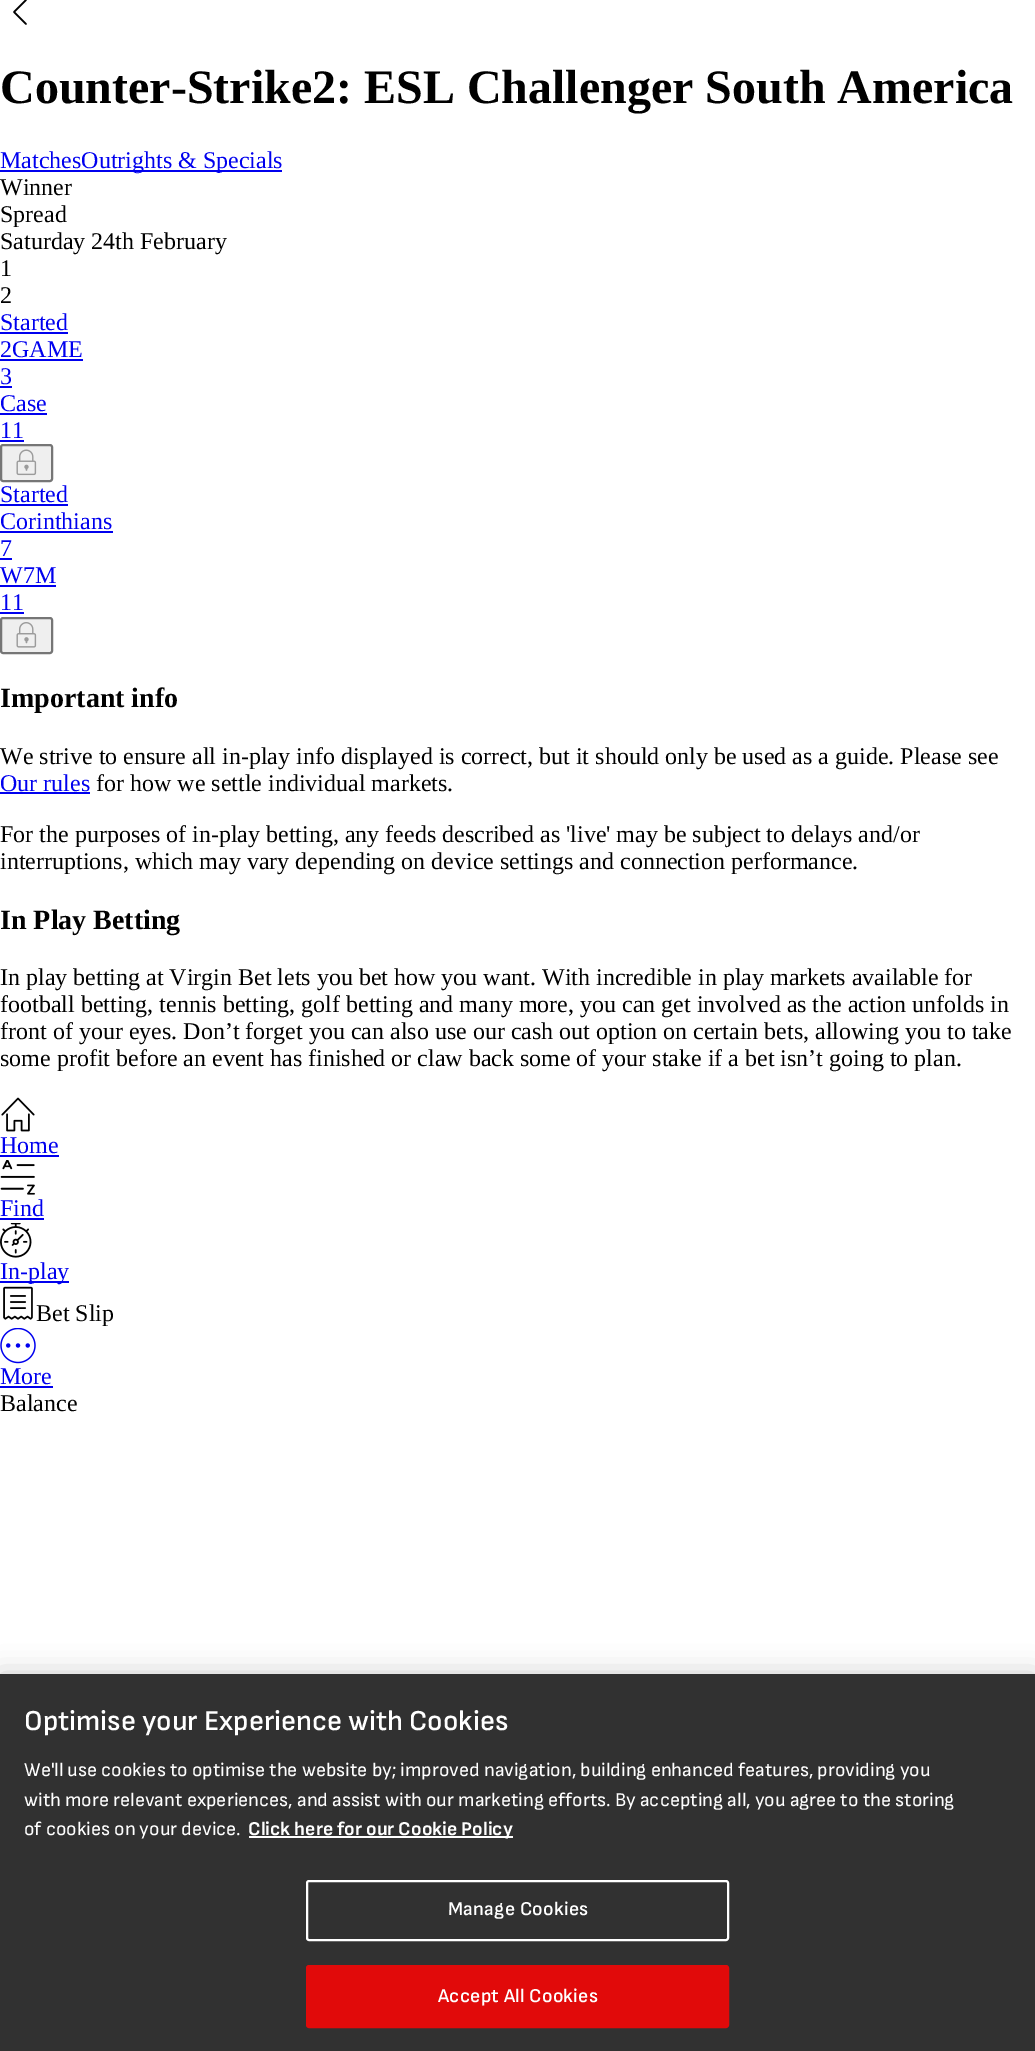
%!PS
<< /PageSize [1035 2051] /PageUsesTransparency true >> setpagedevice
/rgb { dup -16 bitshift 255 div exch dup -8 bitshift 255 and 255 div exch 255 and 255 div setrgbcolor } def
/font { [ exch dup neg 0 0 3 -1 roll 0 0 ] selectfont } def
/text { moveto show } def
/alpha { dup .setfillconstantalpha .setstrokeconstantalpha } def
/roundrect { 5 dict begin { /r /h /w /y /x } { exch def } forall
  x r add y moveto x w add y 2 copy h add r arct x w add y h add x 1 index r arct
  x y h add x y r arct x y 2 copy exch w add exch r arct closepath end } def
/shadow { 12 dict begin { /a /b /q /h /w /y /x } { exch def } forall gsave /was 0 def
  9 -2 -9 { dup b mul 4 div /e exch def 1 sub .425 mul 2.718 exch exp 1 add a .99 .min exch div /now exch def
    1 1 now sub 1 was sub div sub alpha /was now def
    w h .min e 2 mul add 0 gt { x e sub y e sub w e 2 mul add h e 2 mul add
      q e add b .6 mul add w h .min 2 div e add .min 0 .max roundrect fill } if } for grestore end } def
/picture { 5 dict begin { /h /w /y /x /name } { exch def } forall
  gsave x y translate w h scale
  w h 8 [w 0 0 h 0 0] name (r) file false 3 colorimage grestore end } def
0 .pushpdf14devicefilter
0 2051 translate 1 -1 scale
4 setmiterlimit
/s1 { /LiberationSerif-Bold 48 font 16#000000 rgb } def
/s2 { /LiberationSerif-Regular 24 font 16#0000EE rgb } def
/s3 { /LiberationSerif-Regular 24 font 16#000000 rgb } def
/s4 { /LiberationSerif-Bold 28 font 16#000000 rgb } def
/s5 { /SofiaSans-SemiBold 28.75 font 16#FFFFFF rgb } def
/s6 { /SofiaSans-Regular 19.5 font 16#FFFFFF rgb } def
/s7 { /SofiaSans-Bold 19.5 font 16#FFFFFF rgb } def
16#FFFFFF rgb
0 0 1035 2051 rectfill
16#000000 rgb
1.5 setlinewidth
1 setlinecap
1 setlinejoin
26 0 moveto 14 12 lineto 26 24 lineto stroke
s1
(Counter-Strike2: ESL Challenger South America) 0 103 text
16#0000EE rgb
0 170 282 2 rectfill
s2
(MatchesOutrights & Specials) 0 168 text
s3
(Winner) 0 195 text
(Spread) 0 222 text
(Saturday 24th February) 0 249 text
(1) 0 276 text
(2) 0 303 text
s2
(Started) 0 330 text
0 332 68 2 rectfill
(2GAME) 0 357 text
0 359 83 2 rectfill
(3) 0 384 text
0 386 12 2 rectfill
(Case) 0 411 text
0 413 47 2 rectfill
(11) 0 438 text
0 440 24 2 rectfill
16#EFEFEF rgb
1 445 51 36 2 roundrect gsave fill grestore
16#767676 rgb
2 setlinewidth
0 setlinecap
0 setlinejoin
stroke
(pic1.raw) 16 449 21 27 picture
s2
(Started) 0 502 text
0 504 68 2 rectfill
(Corinthians) 0 529 text
0 531 113 2 rectfill
(7) 0 556 text
0 558 12 2 rectfill
(W7M) 0 583 text
0 585 56 2 rectfill
(11) 0 610 text
0 612 24 2 rectfill
16#EFEFEF rgb
1 618 51 35 2 roundrect gsave fill grestore
16#767676 rgb
stroke
(pic2.raw) 16 622 21 26 picture
s4
(Important info) 0 707 text
s3
(We strive to ensure all in-play info displayed is correct, but it should only be used as a guide. Please see) 0 764 text
s2
(Our rules) 0 791 text
0 792 90 2 rectfill
s3
(for how we settle individual markets.) 96 791 text
(For the purposes of in-play betting, any feeds described as 'live' may be subject to delays and/or) 0 842 text
(interruptions, which may vary depending on device settings and connection performance.) 0 869 text
s4
(In Play Betting) 0 929 text
s3
(In play betting at Virgin Bet lets you bet how you want. With incredible in play markets available for) 0 985 text
(football betting, tennis betting, golf betting and many more, you can get involved as the action unfolds in) 0 1012 text
(front of your eyes. Don’t forget you can also use our cash out option on certain bets, allowing you to take) 0 1039 text
(some profit before an event has finished or claw back some of your stake if a bet isn’t going to plan.) 0 1066 text
(pic3.raw) 1 1097 34 35 picture
s2
(Home) 0 1153 text
0 1155 59 2 rectfill
(pic4.raw) 0 1160 35 35 picture
(Find) 0 1216 text
0 1218 44 2 rectfill
(pic5.raw) 0 1223 32 35 picture
0 1281 69 2 rectfill
(In-play) 0 1279 text
(pic6.raw) 3 1286 30 34 picture
s3
(Bet Slip) 36 1321 text
(pic7.raw) 0 1328 36 36 picture
s2
(More) 0 1384 text
0 1386 53 2 rectfill
s3
(Balance) 0 1411 text
0 1674 1035 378 0 13.5 0.2 shadow
16#313131 rgb
0 1674 1035 377 rectfill
s5
(Optimise your Experience with Cookies) 24 1730 text
s6
(We'll use cookies to optimise the website by; improved navigation, building enhanced features, providing you) 24 1776 text
(with more relevant experiences, and assist with our marketing efforts. By accepting all, you agree to the storing) 24 1806 text
(of cookies on your device.) 24 1835 text
249 1836 264 2 rectfill
s7
(Click here for our Cookie Policy) 248 1835 text
307 1881 421 59 2 roundrect stroke
/SofiaSans-SemiBold 19.5 font
448 1915 moveto 0.25 0 (Manage Cookies) ashow
16#E10A0A rgb
307 1966 421 61 2 roundrect gsave fill grestore
stroke
16#FFFFFF rgb
438 2002 moveto 0.25 0 (Accept All Cookies) ashow
.poppdf14devicefilter showpage
